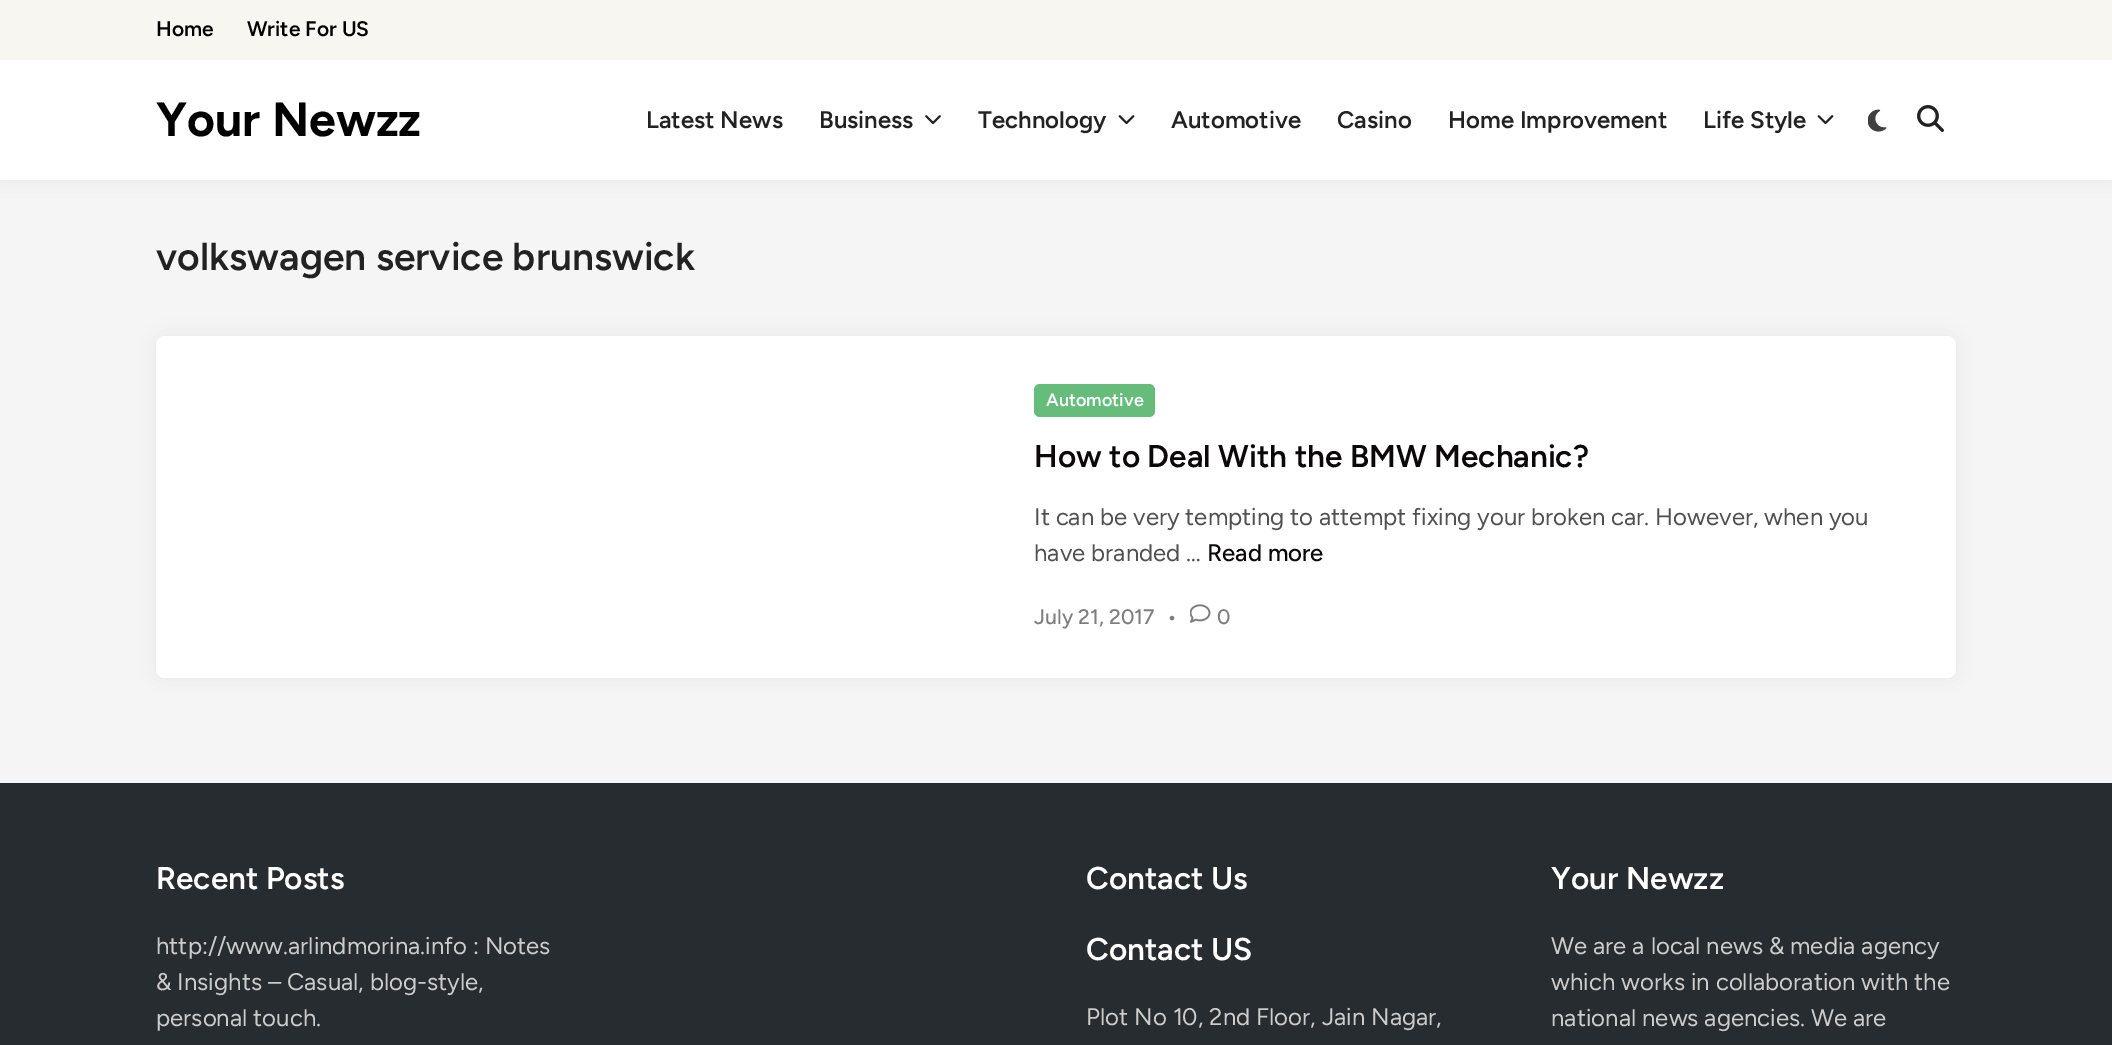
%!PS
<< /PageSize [2112 1045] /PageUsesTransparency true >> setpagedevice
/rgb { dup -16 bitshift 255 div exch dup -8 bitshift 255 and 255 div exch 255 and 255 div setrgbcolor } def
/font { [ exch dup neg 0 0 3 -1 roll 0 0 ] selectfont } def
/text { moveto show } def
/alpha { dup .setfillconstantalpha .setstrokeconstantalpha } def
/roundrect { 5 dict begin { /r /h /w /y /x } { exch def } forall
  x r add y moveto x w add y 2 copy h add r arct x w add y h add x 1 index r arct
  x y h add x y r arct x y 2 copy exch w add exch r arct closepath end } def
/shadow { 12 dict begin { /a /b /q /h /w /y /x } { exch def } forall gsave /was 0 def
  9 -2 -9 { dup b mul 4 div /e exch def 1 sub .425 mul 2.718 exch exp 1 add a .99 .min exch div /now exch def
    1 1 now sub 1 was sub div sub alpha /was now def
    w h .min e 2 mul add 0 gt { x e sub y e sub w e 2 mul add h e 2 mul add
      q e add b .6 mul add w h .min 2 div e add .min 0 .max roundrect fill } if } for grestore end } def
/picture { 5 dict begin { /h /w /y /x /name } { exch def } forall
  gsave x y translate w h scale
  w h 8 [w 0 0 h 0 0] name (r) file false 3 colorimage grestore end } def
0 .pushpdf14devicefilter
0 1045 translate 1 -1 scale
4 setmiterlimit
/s1 { /Figtree-SemiBold 21 font 16#000000 rgb } def
/s2 { /Figtree-Bold 48 font 16#000000 rgb } def
/s3 { /Figtree-SemiBold 24 font 16#222222 rgb } def
/s4 { /Figtree-SemiBold 39 font 16#222222 rgb } def
/s5 { /Figtree-SemiBold 18 font 16#FFFFFF rgb } def
/s6 { /Figtree-SemiBold 31.5 font 16#0A0808 rgb } def
/s7 { /Figtree-Regular 24 font 16#505050 rgb } def
/s8 { /Figtree-Medium 24 font 16#0A0808 rgb } def
/s9 { /Figtree-Medium 21 font 16#7D7D7D rgb } def
/s10 { /Figtree-SemiBold 31.5 font 16#FFFFFF rgb } def
/s11 { /Figtree-Regular 24 font 16#CCCCCC rgb } def
16#F5F5F5 rgb
0 0 2112 1045 rectfill
16#000000 rgb
0 0 2112 180 0 11 0.06 shadow
16#FFFFFF rgb
0 60 2112 120 rectfill
16#F7F6F1 rgb
0 0 2112 60 rectfill
s1
(Home) 156 36 text
(Write For US) 247 36 text
s2
(Your Newzz) 156 136 text
s3
(Latest News) 646 128 text
(Business) 819 128 text
(pic1.raw) 925 115 16 10 picture
(Technology) 978 128 text
(pic2.raw) 1118 115 17 10 picture
(Automotive) 1171 128 text
(Casino) 1337 128 text
(Home Improvement) 1448 128 text
(Life Style) 1703 128 text
(pic2.raw) 1817 115 17 10 picture
(pic3.raw) 1868 109 19 23 picture
(pic4.raw) 1917 105 27 27 picture
s4
(volkswagen service brunswick) 156 270 text
16#000000 rgb
156 336 1800 342 9 11 0.06 shadow
16#FFFFFF rgb
156 336 1800 342 9 roundrect fill
16#65BC7B rgb
1034 384 121 33 6 roundrect fill
s5
(Automotive) 1046 406 text
s6
(How to Deal With the BMW Mechanic?) 1034 467 text
s7
(It can be very tempting to attempt fixing your broken car. However, when you) 1034 525 text
(have branded …) 1034 561 text
s8
(Read more) 1207 561 text
s9
(July 21, 2017) 1034 624 text
(•) 1167 624 text
(pic5.raw) 1190 604 21 19 picture
(0) 1217 624 text
16#272C30 rgb
0 783 2112 262 rectfill
s10
(Recent Posts) 156 889 text
s11
(http://www.arlindmorina.info : Notes) 156 954 text
(& Insights – Casual, blog-style,) 156 990 text
(personal touch.) 156 1026 text
s10
(Contact Us) 1086 889 text
(Contact US) 1086 960 text
s11
(Plot No 10, 2nd Floor, Jain Nagar,) 1086 1025 text
s10
(Your Newzz) 1551 889 text
s11
(We are a local news & media agency) 1551 954 text
(which works in collaboration with the) 1551 990 text
(national news agencies. We are) 1551 1026 text
.poppdf14devicefilter showpage
